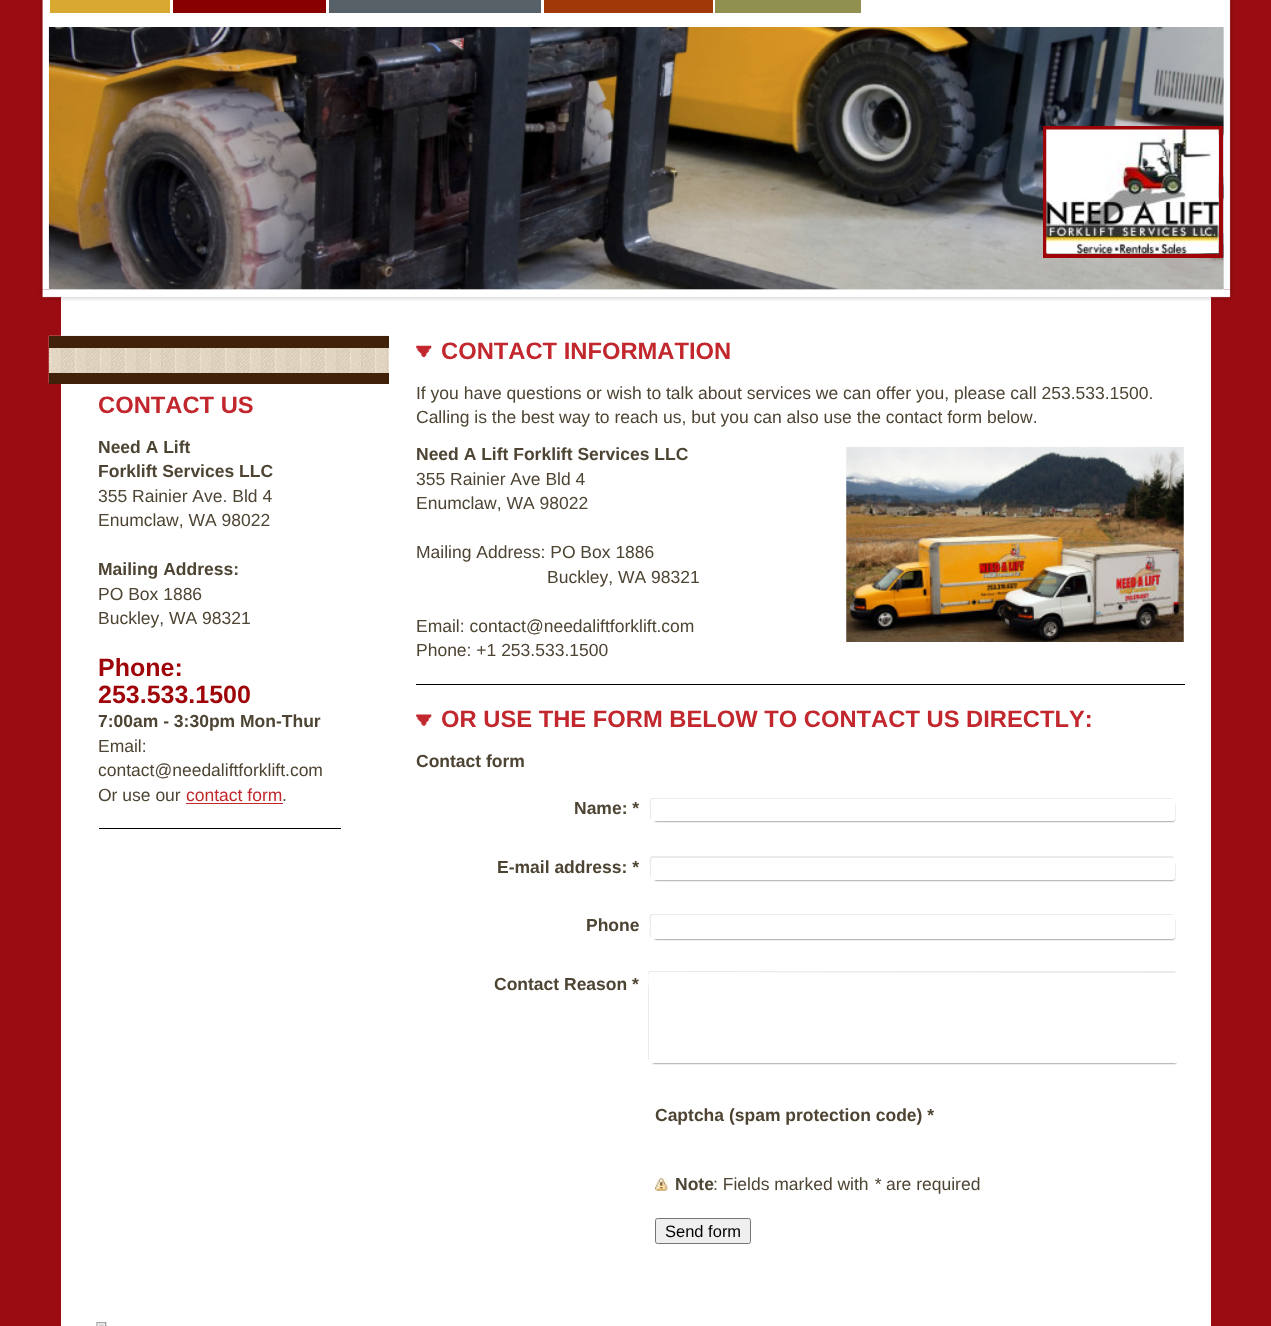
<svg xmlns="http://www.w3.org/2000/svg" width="1271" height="1326">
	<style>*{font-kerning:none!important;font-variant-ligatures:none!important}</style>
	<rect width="100%" height="100%" fill="#9A0C11" />
	<image x="39" y="0" width="1195" height="290" href="assets/img1.png" />
	<rect x="50" y="0" width="120" height="13" fill="#D8A830" />
	<rect x="173" y="0" width="153" height="13" fill="#880000" />
	<rect x="329" y="0" width="212" height="13" fill="#586068" />
	<rect x="544" y="0" width="169" height="13" fill="#A03808" />
	<rect x="715" y="0" width="146" height="13" fill="#909050" />
	<rect x="61" y="296" width="1150" height="1030" fill="#FFFFFF" />
	<image x="39" y="289" width="1195" height="12" href="assets/img4.png" />
	<rect x="49" y="28" width="1175" height="262" fill="#EEEEEE" />
	<image x="48" y="27" width="1176" height="263" href="assets/img2.png" />
	<rect x="1045" y="128" width="176" height="128" fill="none" stroke="#9F0408" stroke-width="4" />
	<image x="1046" y="129" width="173" height="125" href="assets/img3.png" />
	<image x="48" y="335" width="341" height="49" href="assets/img5.png" />
	<rect x="49" y="336" width="340" height="12" fill="#42210B" />
	<rect x="49" y="373" width="340" height="11" fill="#42210B" />
	<text x="98" y="413" font-family="Liberation Sans" font-size="23.75" font-weight="700" fill="#C1272D">CONTACT US</text>
	<g font-family="Liberation Sans" font-size="17.5" font-weight="700" fill="#4D4433">
		<text x="98" y="453">Need A Lift</text>
		<text x="98" y="477">Forklift Services LLC</text>
	</g>
	<g font-family="Liberation Sans" font-size="17.5" fill="#4D4433">
		<text x="98" y="502">355 Rainier Ave. Bld 4</text>
		<text x="98" y="526">Enumclaw, WA 98022</text>
	</g>
	<text x="98" y="575" font-family="Liberation Sans" font-size="17.5" font-weight="700" fill="#4D4433">Mailing Address:</text>
	<g font-family="Liberation Sans" font-size="17.5" fill="#4D4433">
		<text x="98" y="600">PO Box 1886</text>
		<text x="98" y="624">Buckley, WA 98321</text>
	</g>
	<g font-family="Liberation Sans" font-size="25" font-weight="700" fill="#9F0408">
		<text x="98" y="676">Phone:</text>
		<text x="98" y="703">253.533.1500</text>
	</g>
	<text x="98" y="727" font-family="Liberation Sans" font-size="17.5" font-weight="700" fill="#4D4433">7:00am - 3:30pm Mon-Thur</text>
	<g font-family="Liberation Sans" font-size="17.5" fill="#4D4433">
		<text x="98" y="752">Email:</text>
		<text x="98" y="776">contact@needaliftforklift.com</text>
		<text x="98" y="801">Or use our</text>
	</g>
	<text x="186" y="801" font-family="Liberation Sans" font-size="17.5" fill="#C1272D">contact form</text>
	<rect x="186" y="803" width="97" height="1" fill="#C1272D" />
	<text x="282" y="801" font-family="Liberation Sans" font-size="17.5" fill="#4D4433">.</text>
	<rect x="99" y="828" width="242" height="1" fill="#000000" />
	<image x="416" y="345" width="16" height="12" href="assets/img6.png" />
	<text x="441" y="359" font-family="Liberation Sans" font-size="23.75" font-weight="700" fill="#C1272D">CONTACT INFORMATION</text>
	<g font-family="Liberation Sans" font-size="17.5" fill="#4D4433">
		<text x="416" y="399">If you have questions or wish to talk about services we can offer you, please call 253.533.1500.</text>
		<text x="416" y="423">Calling is the best way to reach us, but you can also use the contact form below.</text>
	</g>
	<text x="416" y="460" font-family="Liberation Sans" font-size="17.5" font-weight="700" fill="#4D4433">Need A Lift Forklift Services LLC</text>
	<g font-family="Liberation Sans" font-size="17.5" fill="#4D4433">
		<text x="416" y="485">355 Rainier Ave Bld 4</text>
		<text x="416" y="509">Enumclaw, WA 98022</text>
		<text x="416" y="558">Mailing Address: PO Box 1886</text>
		<text x="547" y="583">Buckley, WA 98321</text>
		<text x="416" y="632">Email: contact@needaliftforklift.com</text>
		<text x="416" y="656">Phone: +1 253.533.1500</text>
	</g>
	<image x="846" y="447" width="338" height="195" href="assets/img7.png" />
	<rect x="416" y="684" width="769" height="1" fill="#000000" />
	<image x="416" y="714" width="16" height="12" href="assets/img8.png" />
	<text x="441" y="727" font-family="Liberation Sans" font-size="23.75" font-weight="700" fill="#C1272D">OR USE THE FORM BELOW TO CONTACT US DIRECTLY:</text>
	<text x="416" y="767" font-family="Liberation Sans" font-size="17.5" font-weight="700" fill="#4D4433">Contact form</text>
	<path d="M652 798C648 798 650 807 650 809C650 811 649 818 651 820V810C651 808 650 799 654 799H1173L1172 798Z" fill="#EBEBEB" />
	<rect x="655" y="804" width="519" height="17" fill="#000000" fill-opacity="0.8" filter="blur(1px)" />
	<rect x="651" y="799" width="524" height="22" rx="2.5" fill="#FFFFFF" />
	<text x="574" y="814" font-family="Liberation Sans" font-size="17.5" font-weight="700" fill="#4D4433">Name: *</text>
	<path d="M652 856C648 856 650 865 650 868C650 870 649 878 652 879L651 878V860C651 859 652 858 654 858H1172H1174C1174 857 1173 856 1172 856Z" fill="#EBEBEB" />
	<rect x="655" y="863" width="519" height="17" fill="#000000" fill-opacity="0.8" filter="blur(1px)" />
	<rect x="651" y="858" width="524" height="22" rx="2.5" fill="#FFFFFF" />
	<text x="497" y="873" font-family="Liberation Sans" font-size="17.5" font-weight="700" fill="#4D4433">E-mail address: *</text>
	<path d="M652 914C648 914 650 924 650 926C650 928 648 937 652 938C650 936 651 926 651 924C651 922 650 915 654 915H1174C1173 915 1172 914 1172 914Z" fill="#EBEBEB" />
	<rect x="655" y="920" width="519" height="19" fill="#000000" fill-opacity="0.8" filter="blur(1px)" />
	<rect x="651" y="915" width="524" height="24" rx="2.5" fill="#FFFFFF" />
	<text x="586" y="931" font-family="Liberation Sans" font-size="17.5" font-weight="700" fill="#4D4433">Phone</text>
	<path d="M650 971C649 971 648 972 648 974V1059L649 1060V989C649 984 646 973 651 972L1176 973C1176 972 1175 971 1174 971Z" fill="#EBEBEB" />
	<rect x="653" y="978" width="523" height="85" fill="#000000" fill-opacity="0.8" filter="blur(1px)" />
	<rect x="649" y="973" width="529" height="90" rx="2.5" fill="#FFFFFF" />
	<g font-family="Liberation Sans" font-size="17.5" font-weight="700" fill="#4D4433">
		<text x="494" y="990">Contact Reason *</text>
		<text x="655" y="1121">Captcha (spam protection code) *</text>
	</g>
	<image x="655" y="1178" width="13" height="13" href="assets/img9.png" />
	<text x="675" y="1190" font-family="Liberation Sans" font-size="17.5" font-weight="700" fill="#4D4433">Note</text>
	<text x="713" y="1190" font-family="Liberation Sans" font-size="17.5" fill="#4D4433">: Fields marked with</text>
	<text x="874" y="1190" font-family="Liberation Sans" font-size="17.5" font-style="italic" fill="#4D4433">*</text>
	<text x="886" y="1190" font-family="Liberation Sans" font-size="17.5" fill="#4D4433">are required</text>
	<rect x="655.5" y="1218.5" width="95" height="25" rx="2" fill="#EFEFEF" stroke="#767676" />
	<text x="665" y="1237" font-family="Liberation Sans" font-size="16.5" fill="#000000">Send form</text>
	<image x="96" y="1322" width="11" height="4" href="assets/img10.png" />
</svg>
